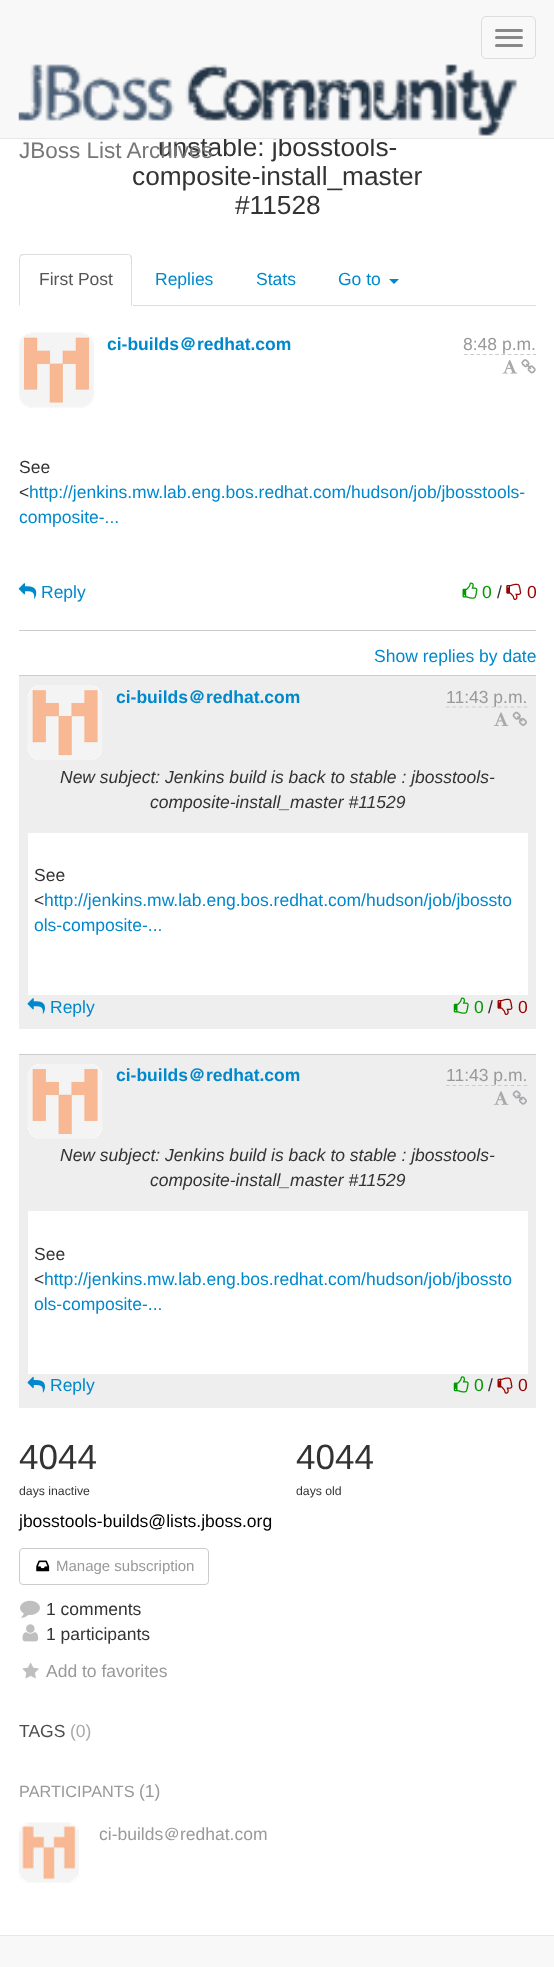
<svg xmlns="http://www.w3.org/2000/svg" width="554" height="1967">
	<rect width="100%" height="100%" fill="#FFFFFF" />
	<g font-family="Liberation Sans" font-size="26.25" fill="#333333">
		<text x="158" y="156">unstable: jbosstools-</text>
		<text x="132" y="185">composite-install_master</text>
		<text x="235" y="214">#11528</text>
	</g>
	<rect x="133" y="305" width="403" height="1" fill="#DDDDDD" />
	<path d="M24 254C22 254 21 254 20 255L21 256L24 255H129L130 256L131 255C130 255 129 254 128 254Z" fill="#DDDDDD" />
	<path d="M132 306V259C132 258 132 256 131 255L130 256L131 259V305Z" fill="#DDDDDD" />
	<path d="M20 255C20 256 19 258 19 259V306L20 305V259C20 258 20 257 21 256Z" fill="#DDDDDD" />
	<text x="39" y="285" font-family="Liberation Sans" font-size="17.5" fill="#555555">First Post</text>
	<g font-family="Liberation Sans" font-size="17.5" fill="#0088CC">
		<text x="155" y="285">Replies</text>
		<text x="256" y="285">Stats</text>
		<text x="338" y="285">Go to</text>
	</g>
	<path d="M389 279H399L394 284Z" fill="#0088CC" />
	<image x="19" y="332" width="75" height="76" href="assets/img1.png" />
	<text x="107" y="350" font-family="Liberation Sans" font-size="17.5" font-weight="700" fill="#0088CC">ci-builds</text>
	<text x="179" y="350" font-family="WenQuanYi Zen Hei" font-size="17.5" font-weight="700" fill="#0088CC">＠</text>
	<text x="197" y="350" font-family="Liberation Sans" font-size="17.5" font-weight="700" fill="#0088CC">redhat.com</text>
	<path d="M464 354.5H536" fill="none" stroke="#CCCCCC" stroke-width="1.2" stroke-dasharray="3.75 2.5" />
	<text x="463" y="350" font-family="Liberation Sans" font-size="17.5" fill="#999999">8:48 p.m.</text>
	<image x="502" y="360" width="16" height="14" href="assets/img2.png" />
	<image x="521" y="359" width="15" height="15" href="assets/img3.png" />
	<g font-family="Liberation Sans" font-size="17.5" fill="#333333">
		<text x="19" y="473">See</text>
		<text x="19" y="498">&lt;</text>
	</g>
	<g font-family="Liberation Sans" font-size="17.5" fill="#0088CC">
		<text x="29" y="498">http://jenkins.mw.lab.eng.bos.redhat.com/hudson/job/jbosstools-</text>
		<text x="19" y="523">composite-...</text>
	</g>
	<rect x="19" y="630" width="517" height="1" fill="#CCCCCC" />
	<image x="18" y="583" width="19" height="16" href="assets/img4.png" />
	<text x="41" y="598" font-family="Liberation Sans" font-size="17.5" fill="#0088CC">Reply</text>
	<image x="462" y="582" width="16" height="17" href="assets/img5.png" />
	<text x="482" y="598" font-family="Liberation Sans" font-size="17.5" fill="#009900">0</text>
	<text x="497" y="598" font-family="Liberation Sans" font-size="17.5" fill="#333333">/</text>
	<image x="506" y="583" width="16" height="17" href="assets/img6.png" />
	<text x="527" y="598" font-family="Liberation Sans" font-size="17.5" fill="#990000">0</text>
	<text x="374" y="662" font-family="Liberation Sans" font-size="17.5" fill="#0088CC">Show replies by date</text>
	<rect x="19" y="676" width="517" height="353" fill="#EEEEEE" />
	<rect x="19" y="675" width="517" height="1" fill="#CCCCCC" />
	<image x="27" y="685" width="76" height="75" href="assets/img7.png" />
	<text x="116" y="703" font-family="Liberation Sans" font-size="17.5" font-weight="700" fill="#0088CC">ci-builds</text>
	<text x="188" y="703" font-family="WenQuanYi Zen Hei" font-size="17.5" font-weight="700" fill="#0088CC">＠</text>
	<text x="206" y="703" font-family="Liberation Sans" font-size="17.5" font-weight="700" fill="#0088CC">redhat.com</text>
	<path d="M446 707H527.5" fill="none" stroke="#CCCCCC" stroke-width="1.2" stroke-dasharray="3.75 2.71" />
	<text x="446" y="703" font-family="Liberation Sans" font-size="17.5" fill="#999999">11:43 p.m.</text>
	<image x="493" y="712" width="16" height="15" href="assets/img8.png" />
	<image x="512" y="711" width="15" height="15" href="assets/img9.png" />
	<g font-family="Liberation Sans" font-size="17.5" font-style="italic" fill="#333333">
		<text x="60" y="783">New subject: Jenkins build is back to stable : jbosstools-</text>
		<text x="150" y="808">composite-install_master #11529</text>
	</g>
	<rect x="28" y="833" width="500" height="162" fill="#FFFFFF" />
	<g font-family="Liberation Sans" font-size="17.5" fill="#333333">
		<text x="34" y="881">See</text>
		<text x="34" y="906">&lt;</text>
	</g>
	<g font-family="Liberation Sans" font-size="17.5" fill="#0088CC">
		<text x="44" y="906">http://jenkins.mw.lab.eng.bos.redhat.com/hudson/job/jbossto</text>
		<text x="34" y="931">ols-composite-...</text>
	</g>
	<image x="27" y="998" width="18" height="16" href="assets/img10.png" />
	<text x="50" y="1013" font-family="Liberation Sans" font-size="17.5" fill="#0088CC">Reply</text>
	<image x="453" y="997" width="16" height="17" href="assets/img11.png" />
	<text x="474" y="1013" font-family="Liberation Sans" font-size="17.5" fill="#009900">0</text>
	<text x="488" y="1013" font-family="Liberation Sans" font-size="17.5" fill="#333333">/</text>
	<image x="497" y="998" width="16" height="17" href="assets/img12.png" />
	<text x="518" y="1013" font-family="Liberation Sans" font-size="17.5" fill="#990000">0</text>
	<rect x="19" y="1055" width="517" height="353" fill="#EEEEEE" />
	<rect x="19" y="1054" width="517" height="1" fill="#CCCCCC" />
	<image x="27" y="1064" width="76" height="75" href="assets/img13.png" />
	<text x="116" y="1081" font-family="Liberation Sans" font-size="17.5" font-weight="700" fill="#0088CC">ci-builds</text>
	<text x="188" y="1081" font-family="WenQuanYi Zen Hei" font-size="17.5" font-weight="700" fill="#0088CC">＠</text>
	<text x="206" y="1081" font-family="Liberation Sans" font-size="17.5" font-weight="700" fill="#0088CC">redhat.com</text>
	<path d="M446 1085.5H527.5" fill="none" stroke="#CCCCCC" stroke-width="1.2" stroke-dasharray="3.75 2.71" />
	<text x="446" y="1081" font-family="Liberation Sans" font-size="17.5" fill="#999999">11:43 p.m.</text>
	<image x="493" y="1091" width="16" height="14" href="assets/img14.png" />
	<image x="512" y="1090" width="15" height="15" href="assets/img15.png" />
	<g font-family="Liberation Sans" font-size="17.5" font-style="italic" fill="#333333">
		<text x="60" y="1161">New subject: Jenkins build is back to stable : jbosstools-</text>
		<text x="150" y="1186">composite-install_master #11529</text>
	</g>
	<rect x="28" y="1211" width="500" height="163" fill="#FFFFFF" />
	<g font-family="Liberation Sans" font-size="17.5" fill="#333333">
		<text x="34" y="1260">See</text>
		<text x="34" y="1285">&lt;</text>
	</g>
	<g font-family="Liberation Sans" font-size="17.5" fill="#0088CC">
		<text x="44" y="1285">http://jenkins.mw.lab.eng.bos.redhat.com/hudson/job/jbossto</text>
		<text x="34" y="1310">ols-composite-...</text>
	</g>
	<image x="27" y="1376" width="18" height="17" href="assets/img16.png" />
	<text x="50" y="1391" font-family="Liberation Sans" font-size="17.5" fill="#0088CC">Reply</text>
	<image x="453" y="1376" width="16" height="17" href="assets/img17.png" />
	<text x="474" y="1391" font-family="Liberation Sans" font-size="17.5" fill="#009900">0</text>
	<text x="488" y="1391" font-family="Liberation Sans" font-size="17.5" fill="#333333">/</text>
	<image x="497" y="1377" width="16" height="17" href="assets/img18.png" />
	<text x="518" y="1391" font-family="Liberation Sans" font-size="17.5" fill="#990000">0</text>
	<text x="19" y="1469" font-family="Liberation Sans" font-size="35" fill="#333333">4044</text>
	<text x="19" y="1495" font-family="Liberation Sans" font-size="12.25" fill="#333333">days inactive</text>
	<text x="296" y="1469" font-family="Liberation Sans" font-size="35" fill="#333333">4044</text>
	<text x="296" y="1495" font-family="Liberation Sans" font-size="12.25" fill="#333333">days old</text>
	<text x="19" y="1527" font-family="Liberation Sans" font-size="17.5" fill="#000000">jbosstools-builds@lists.jboss.org</text>
	<rect x="19.5" y="1548.5" width="189" height="36" rx="3.5" fill="none" stroke="#CCCCCC" />
	<image x="36" y="1560" width="14" height="12" href="assets/img19.png" />
	<text x="56" y="1571" font-family="Liberation Sans" font-size="15" fill="#999999">Manage subscription</text>
	<image x="20" y="1600" width="20" height="18" href="assets/img20.png" />
	<text x="46" y="1615" font-family="Liberation Sans" font-size="17.5" fill="#333333">1 comments</text>
	<image x="22" y="1624" width="17" height="18" href="assets/img21.png" />
	<text x="46" y="1640" font-family="Liberation Sans" font-size="17.5" fill="#333333">1 participants</text>
	<image x="22" y="1662" width="17" height="17" href="assets/img22.png" />
	<text x="46" y="1677" font-family="Liberation Sans" font-size="17.5" fill="#999999">Add to favorites</text>
	<text x="19" y="1737" font-family="Liberation Sans" font-size="17.5" fill="#4D4D4D">TAGS</text>
	<text x="70" y="1737" font-family="Liberation Sans" font-size="17.5" fill="#A7A9AC">(0)</text>
	<text x="19" y="1797" font-family="Liberation Sans" font-size="16.25" fill="#999999">PARTICIPANTS</text>
	<text x="139" y="1797" font-family="Liberation Sans" font-size="17.5" fill="#999999">(1)</text>
	<image x="19" y="1822" width="60" height="61" href="assets/img23.png" />
	<text x="99" y="1840" font-family="Liberation Sans" font-size="17.5" fill="#999999">ci-builds</text>
	<text x="163" y="1840" font-family="WenQuanYi Zen Hei" font-size="17.5" font-weight="500" fill="#999999">＠</text>
	<text x="180" y="1840" font-family="Liberation Sans" font-size="17.5" fill="#999999">redhat.com</text>
	<rect x="0" y="0" width="554" height="138" fill="#F8F8F8" />
	<rect x="0" y="138" width="554" height="1" fill="#E7E7E7" />
	<rect x="481.5" y="16.5" width="54" height="42" rx="4.5" fill="none" stroke="#DDDDDD" />
	<rect x="495" y="29" width="28" height="3" rx="1.5" fill="#888888" />
	<rect x="495" y="36" width="28" height="3" rx="1.5" fill="#888888" />
	<rect x="495" y="44" width="28" height="3" rx="1.5" fill="#888888" />
	<image x="18" y="64" width="500" height="72" href="assets/img24.png" />
	<text x="19" y="158" font-family="Liberation Sans" font-size="22.5" fill="#777777">JBoss List Archives</text>
	<rect x="0" y="1936" width="554" height="31" fill="#F8F8F8" />
	<rect x="0" y="1935" width="554" height="1" fill="#E7E7E7" />
</svg>
